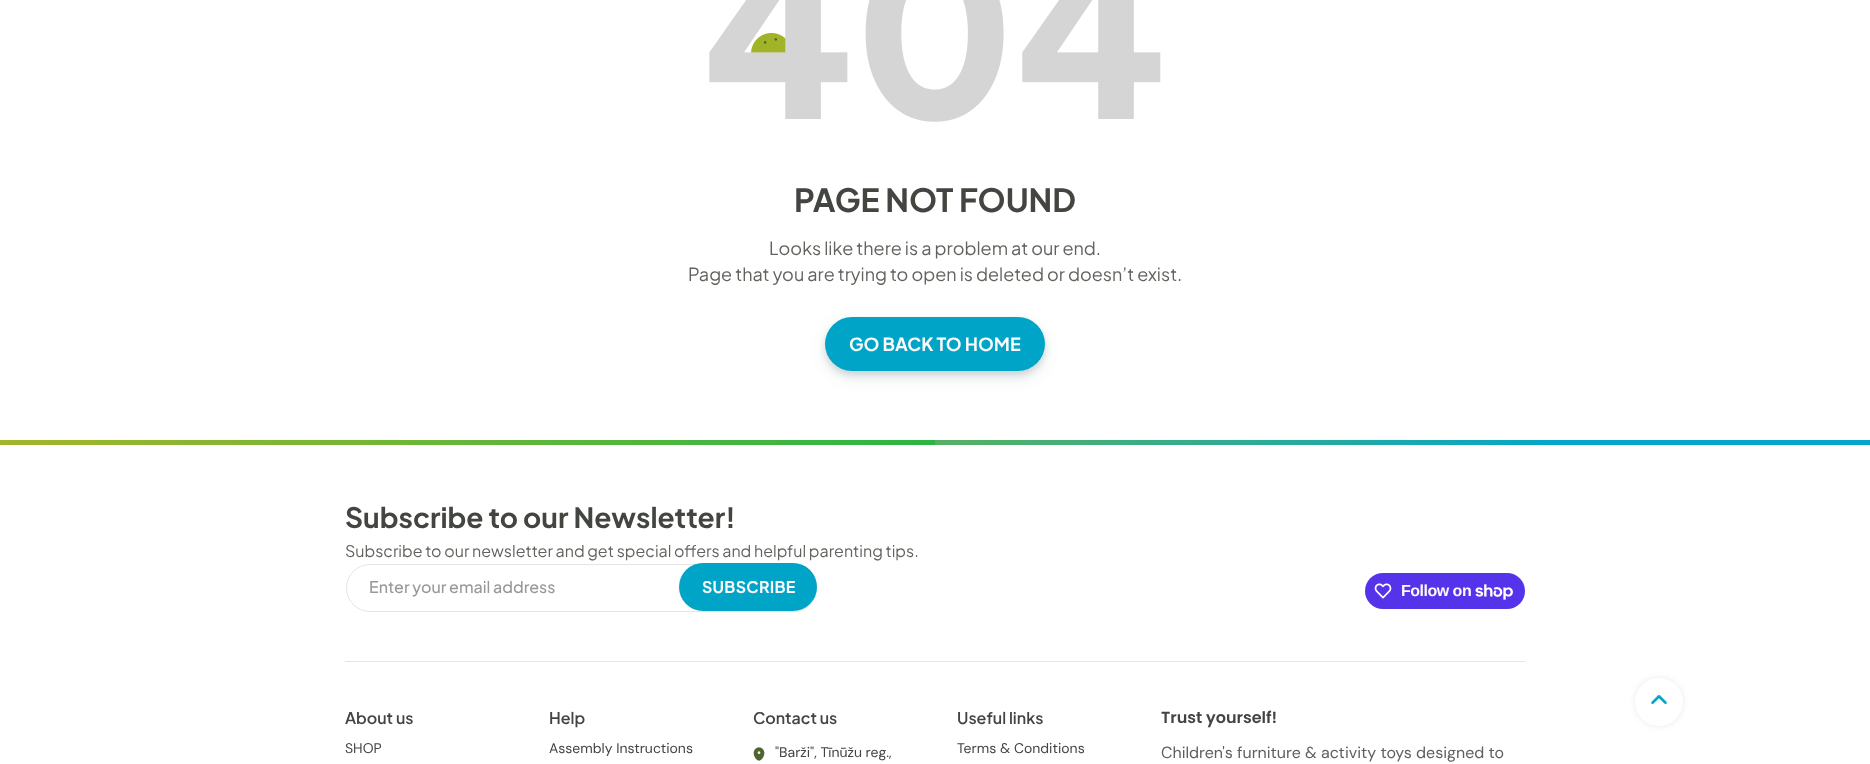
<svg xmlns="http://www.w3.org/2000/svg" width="1870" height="764">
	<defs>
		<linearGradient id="g1" gradientUnits="userSpaceOnUse" x1="0" y1="445" x2="935" y2="445"><stop offset="0" stop-color="#A3B52B" /><stop offset="1" stop-color="#2BB545" /></linearGradient>
		<linearGradient id="g2" gradientUnits="userSpaceOnUse" x1="1555" y1="445" x2="954" y2="445"><stop offset="0" stop-color="#05A6C8" /><stop offset="1" stop-color="#54B064" /></linearGradient>
	</defs>
	<rect width="100%" height="100%" fill="#FFFFFF" />
	<image x="709" y="0" width="452" height="122" href="assets/img1.png" />
	<text x="794" y="212" font-family="Plus Jakarta Sans" font-size="32" font-weight="700" fill="#434540">PAGE NOT FOUND</text>
	<g font-family="Plus Jakarta Sans" font-size="18" fill="#61645E">
		<text x="769" y="255">Looks like there is a problem at our end.</text>
		<text x="688" y="281">Page that you are trying to open is deleted or doesn’t exist.</text>
	</g>
	<rect x="825" y="323" width="220" height="54" rx="27" fill="#04303A" fill-opacity="0.1" filter="blur(8px)" />
	<rect x="825" y="321" width="220" height="54" rx="27" fill="#02232A" fill-opacity="0.12" filter="blur(3px)" />
	<rect x="825" y="317" width="220" height="54" rx="27" fill="#00A4C7" />
	<text x="849" y="351" font-family="Plus Jakarta Sans" font-size="18" font-weight="700" fill="#FAFAFA">GO BACK TO HOME</text>
	<rect x="0" y="440" width="935" height="5" fill="url(#g1)" />
	<rect x="935" y="440" width="935" height="5" fill="url(#g2)" />
	<text x="345" y="528" font-family="Plus Jakarta Sans" font-size="28" font-weight="700" fill="#434540">Subscribe to our Newsletter!</text>
	<text x="345" y="557" font-family="Plus Jakarta Sans" font-size="16" fill="#61645E">Subscribe to our newsletter and get special offers and helpful parenting tips.</text>
	<rect x="346.5" y="564.5" width="470" height="47" rx="23.5" fill="none" stroke="#E5E5E5" />
	<text x="369" y="593" font-family="Plus Jakarta Sans" font-size="16" font-weight="500" fill="#989898">Enter your email address</text>
	<rect x="679" y="563" width="138" height="48" rx="24" fill="#00A4C7" />
	<text x="702" y="593" font-family="Plus Jakarta Sans" font-size="16" font-weight="700" letter-spacing="0.25" fill="#FAFAFA">SUBSCRIBE</text>
	<rect x="1365" y="573" width="160" height="36" rx="18" fill="#5433EB" />
	<image x="1374" y="583" width="18" height="16" href="assets/img2.png" />
	<text x="1401" y="596" font-family="Liberation Sans" font-size="16" font-weight="700" letter-spacing="-0.5" fill="#FAFAFA">Follow on</text>
	<image x="1475" y="584" width="38" height="16" href="assets/img3.png" />
	<rect x="345" y="661" width="1180" height="1" fill="#E5E5E5" />
	<text x="345" y="724" font-family="Plus Jakarta Sans" font-size="16" font-weight="600" fill="#434540">About us</text>
	<text x="345" y="753" font-family="DM Sans" font-size="14" fill="#434540">SHOP</text>
	<text x="549" y="724" font-family="Plus Jakarta Sans" font-size="16" font-weight="600" fill="#434540">Help</text>
	<text x="549" y="753" font-family="DM Sans" font-size="14" fill="#434540">Assembly Instructions</text>
	<text x="753" y="724" font-family="Plus Jakarta Sans" font-size="16" font-weight="600" fill="#434540">Contact us</text>
	<image x="753" y="747" width="12" height="14" href="assets/img4.png" />
	<text x="775" y="757" font-family="DM Sans" font-size="14" fill="#434540">"Barži", Tīnūžu reg.,</text>
	<text x="957" y="724" font-family="Plus Jakarta Sans" font-size="16" font-weight="600" fill="#434540">Useful links</text>
	<text x="957" y="753" font-family="DM Sans" font-size="14" fill="#434540">Terms &amp; Conditions</text>
	<text x="1161" y="723" font-family="Poppins" font-size="16" font-weight="600" fill="#434540">Trust yourself!</text>
	<text x="1161" y="758" font-family="DM Sans" font-size="16" fill="#5E5E5E">Children's furniture &amp; activity toys designed to</text>
	<rect x="1635" y="678" width="48" height="48" rx="24" fill="#ADADAD" fill-opacity="0.25" filter="blur(3px)" />
	<circle cx="1659" cy="702" r="24" fill="#FFFFFF" />
	<image x="1651" y="695" width="16" height="9" href="assets/img5.png" />
</svg>
